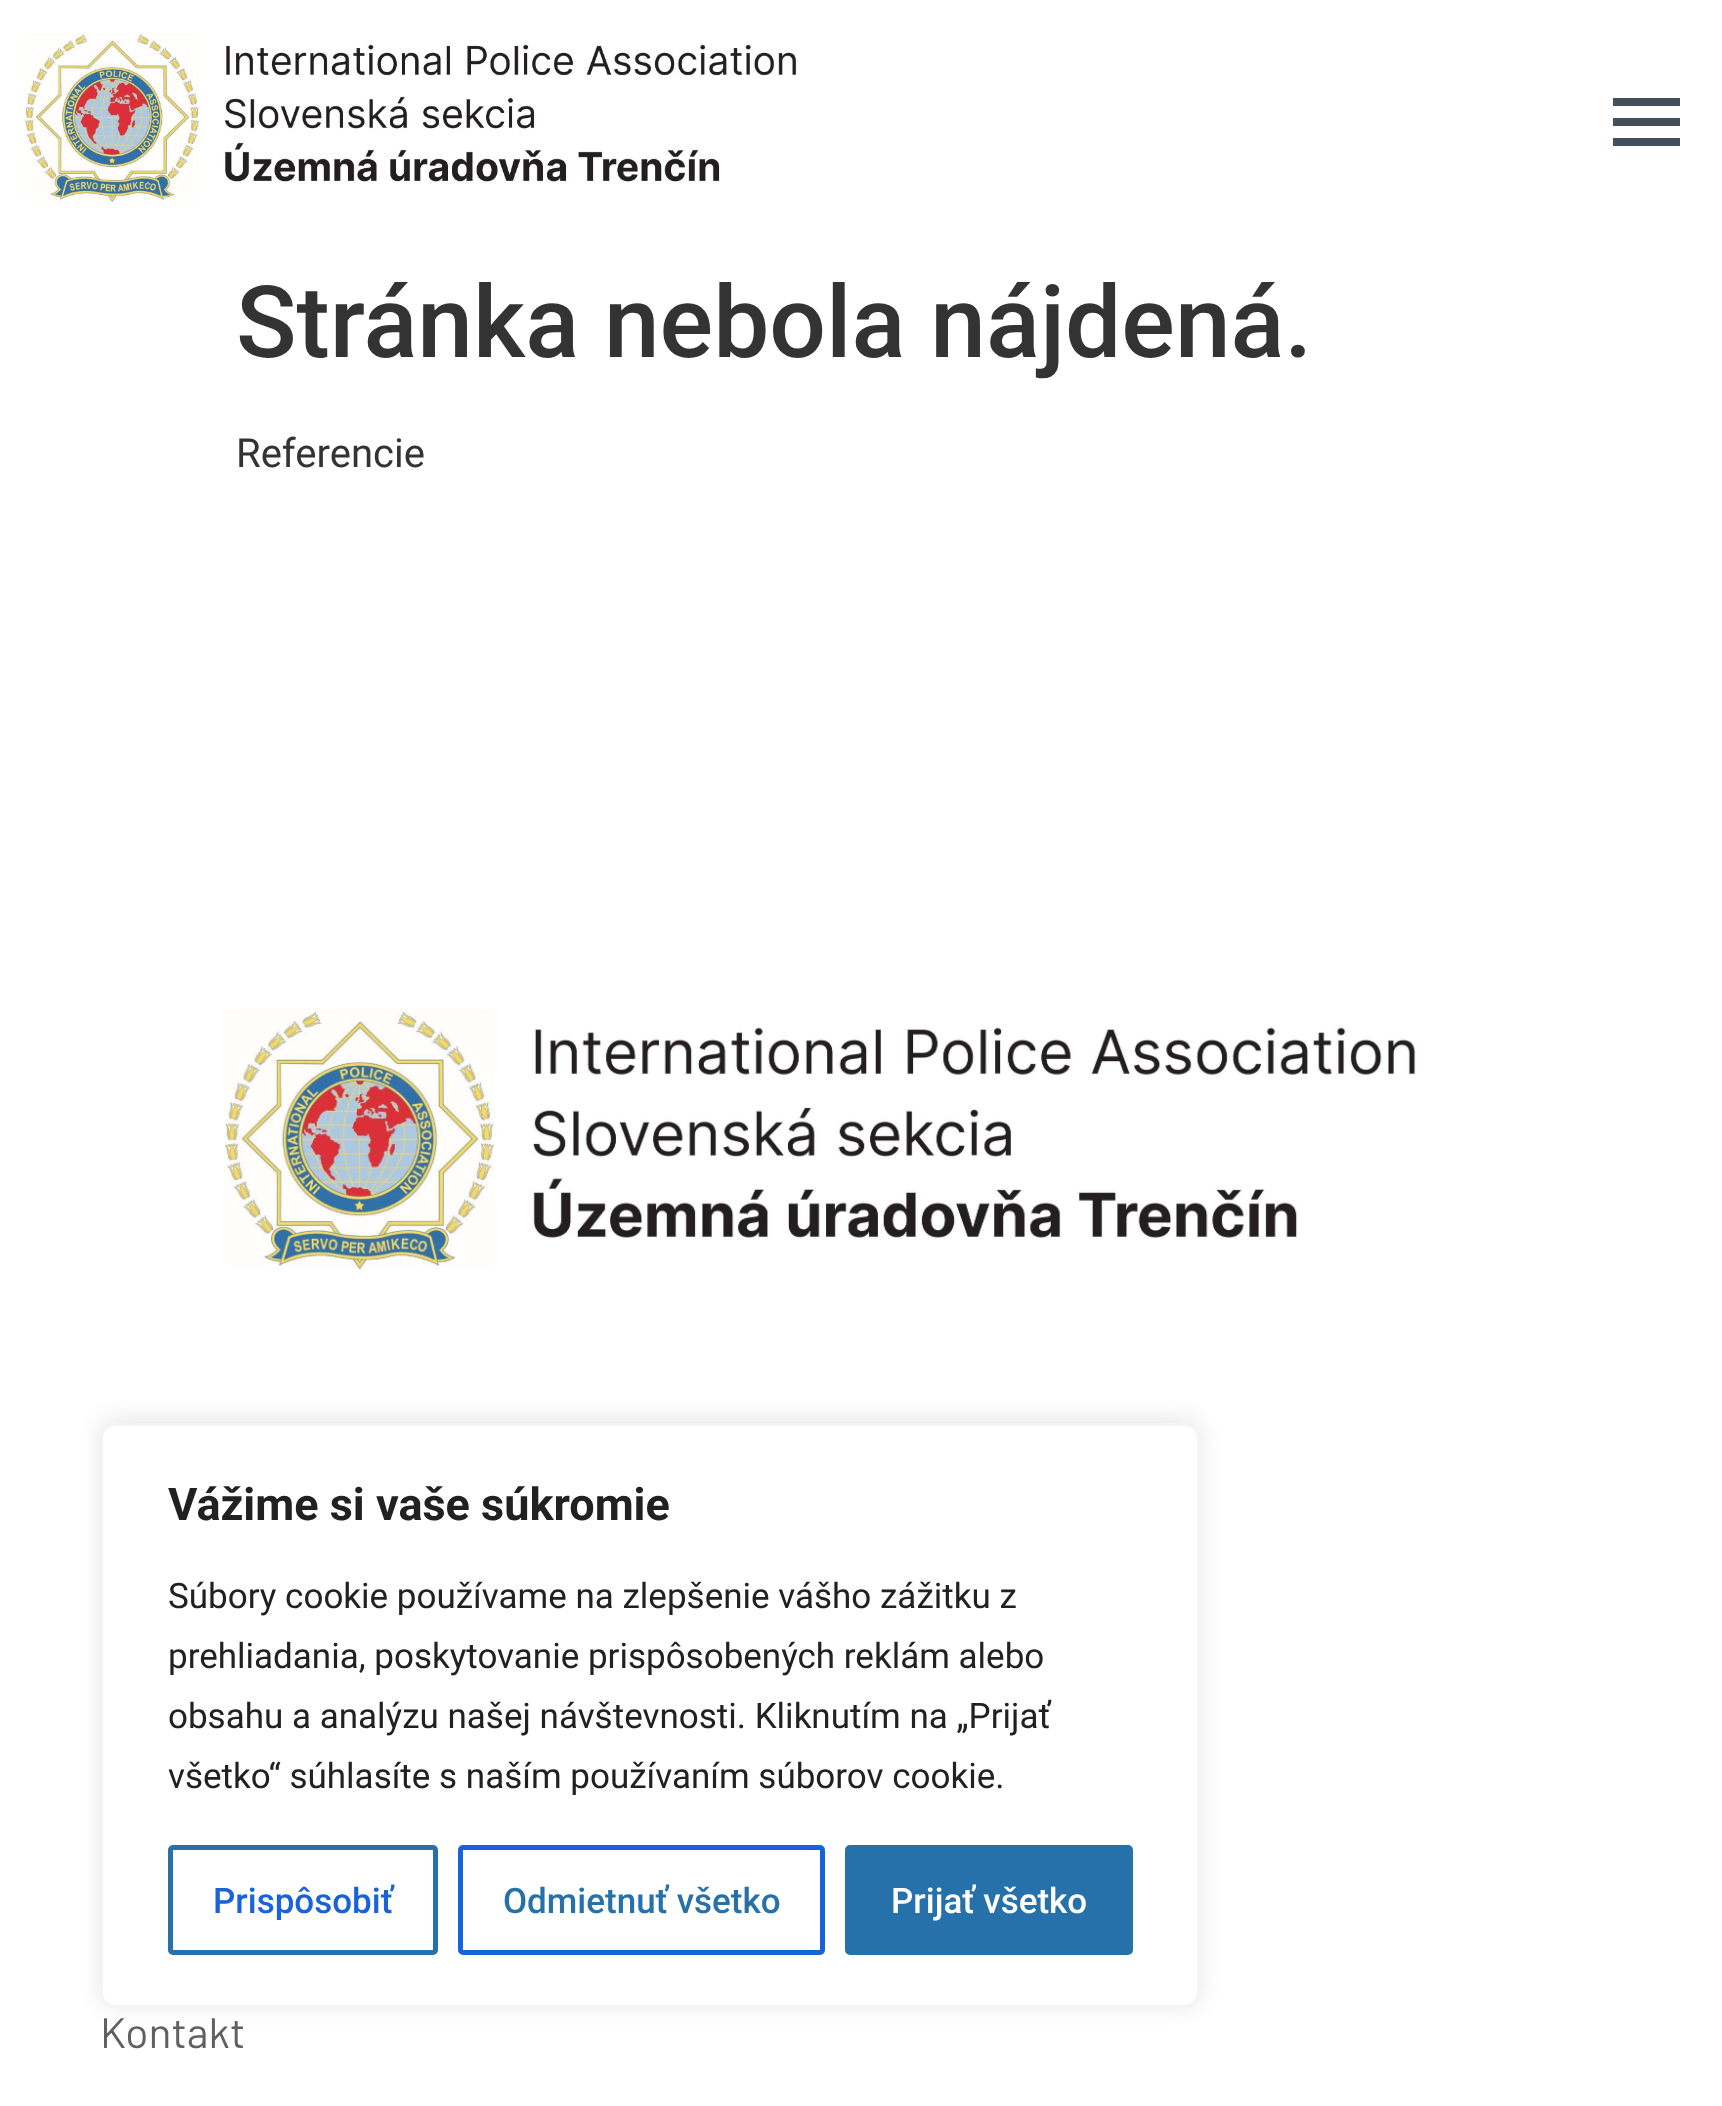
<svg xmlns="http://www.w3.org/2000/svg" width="1722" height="2106">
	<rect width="100%" height="100%" fill="#FFFFFF" />
	<image x="25" y="33" width="772" height="170" href="assets/img1.png" />
	<rect x="1613" y="98" width="67" height="8" fill="#43505C" />
	<rect x="1613" y="118" width="67" height="8" fill="#43505C" />
	<rect x="1613" y="138" width="67" height="8" fill="#43505C" />
	<text x="236" y="357" font-family="Roboto" font-size="100" font-weight="500" fill="#333333">Stránka nebola nájdená.</text>
	<text x="236" y="467" font-family="Roboto" font-size="40" fill="#333333">Referencie</text>
	<rect x="100" y="1420" width="1100" height="585" rx="15" fill="#ACABAB" fill-opacity="0.3" filter="blur(12.5px)" />
	<rect x="101.5" y="1424.5" width="1097" height="582" rx="13.5" fill="#FFFFFF" stroke="#F4F4F4" stroke-width="3" />
	<text x="168" y="1520" font-family="Roboto" font-size="45" font-weight="700" fill="#212121">Vážime si vaše súkromie</text>
	<g font-family="Roboto" font-size="35" fill="#212121">
		<text x="168" y="1608">Súbory cookie používame na zlepšenie vášho zážitku z</text>
		<text x="168" y="1668">prehliadania, poskytovanie prispôsobených reklám alebo</text>
		<text x="168" y="1728">obsahu a analýzu našej návštevnosti. Kliknutím na „Prijať</text>
		<text x="168" y="1788">všetko“ súhlasíte s naším používaním súborov cookie.</text>
	</g>
	<rect x="170.5" y="1847.5" width="265" height="105" rx="2.5" fill="none" stroke="#2771AB" stroke-width="5" />
	<text x="213" y="1913" font-family="Roboto" font-size="35" font-weight="500" fill="#1863DC">Prispôsobiť</text>
	<rect x="460.5" y="1847.5" width="362" height="105" rx="2.5" fill="none" stroke="#1863DC" stroke-width="5" />
	<text x="503" y="1913" font-family="Roboto" font-size="35" font-weight="500" fill="#2771AB">Odmietnuť všetko</text>
	<rect x="847.5" y="1847.5" width="283" height="105" rx="2.5" fill="#2771AB" stroke="#2771AB" stroke-width="5" />
	<text x="891" y="1913" font-family="Roboto" font-size="35" font-weight="500" fill="#FFFFFF">Prijať všetko</text>
	<image x="225" y="1009" width="1191" height="261" href="assets/img2.png" />
	<text x="100" y="2048" font-family="Barlow" font-size="42.5" fill="#606060">Kontakt</text>
</svg>
